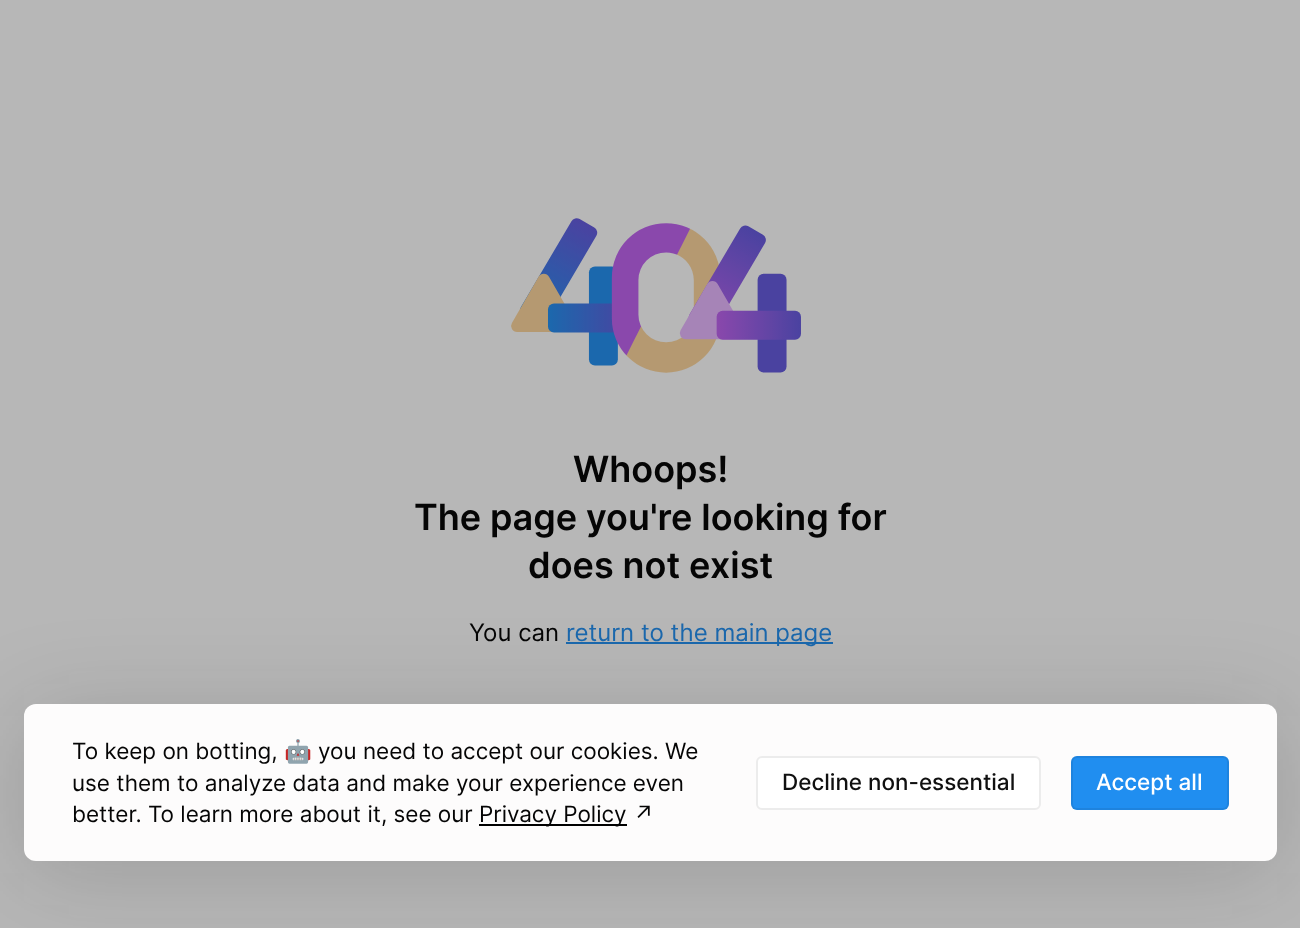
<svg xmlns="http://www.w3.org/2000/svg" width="1300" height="928">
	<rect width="100%" height="100%" fill="#B7B7B7" />
	<image x="511" y="218" width="290" height="155" href="assets/img1.png" />
	<g font-family="Inter" font-size="36" font-weight="600" fill="#050505">
		<text x="573" y="482">Whoops!</text>
		<text x="414" y="530">The page you're looking for</text>
		<text x="528" y="578">does not exist</text>
	</g>
	<text x="469" y="641" font-family="Inter" font-size="24" fill="#050505">You can</text>
	<rect x="566" y="642" width="267" height="2" fill="#1B68AD" />
	<text x="566" y="641" font-family="Inter" font-size="24" fill="#1B68AD">return to the main page</text>
	<rect x="24" y="716" width="1253" height="157" rx="12" fill="#141414" fill-opacity="0.16" filter="blur(48px)" />
	<rect x="24" y="704" width="1253" height="157" rx="12" fill="#FDFCFC" />
	<text x="72" y="759" font-family="Inter" font-size="22.5" fill="#050505">To keep on botting,</text>
	<text x="284" y="759" font-family="Noto Color Emoji" font-size="22.5" fill="#050505">🤖</text>
	<g font-family="Inter" font-size="22.5" fill="#050505">
		<text x="318" y="759">you need to accept our cookies. We</text>
		<text x="72" y="791">use them to analyze data and make your experience even</text>
		<text x="72" y="822">better. To learn more about it, see our</text>
	</g>
	<rect x="479" y="824" width="148" height="2" fill="#000000" />
	<text x="479" y="822" font-family="Inter" font-size="22.5" fill="#050505">Privacy Policy ↗︎</text>
	<rect x="757" y="757" width="283" height="52" rx="5" fill="#FFFFFF" stroke="#ECECEC" stroke-width="2" />
	<text x="782" y="790" font-family="Inter" font-size="22.5" font-weight="500" fill="#101010">Decline non-essential</text>
	<rect x="1071" y="756" width="158" height="54" rx="6" fill="#208EF0" />
	<rect x="1072" y="757" width="156" height="52" rx="5" fill="none" stroke="#101010" stroke-opacity="0.08" stroke-width="2" />
	<text x="1096" y="790" font-family="Inter" font-size="22.5" font-weight="500" fill="#FFFFFF">Accept all</text>
</svg>
